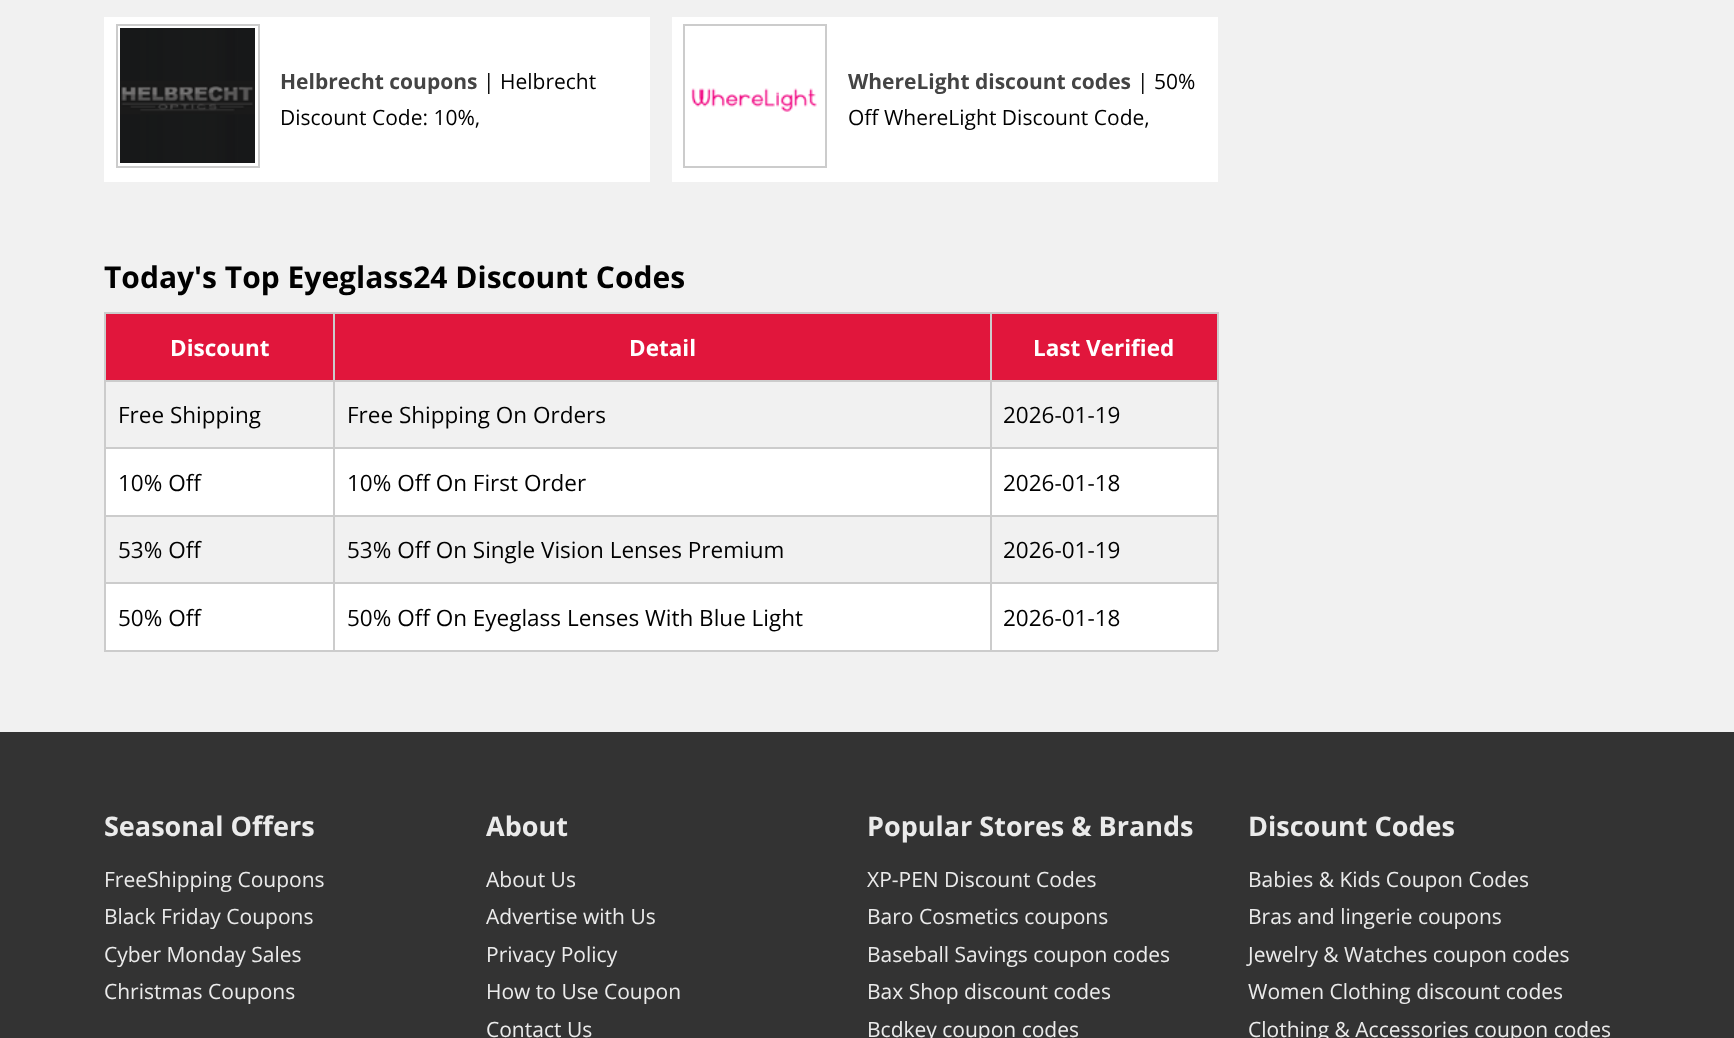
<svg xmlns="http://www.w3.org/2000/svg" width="1734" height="1038">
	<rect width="100%" height="100%" fill="#F1F1F1" />
	<rect x="104" y="17" width="546" height="165" fill="#FFFFFF" />
	<rect x="117" y="25" width="142" height="142" fill="none" stroke="#CCCCCC" stroke-width="2" />
	<image x="120" y="28" width="135" height="135" href="assets/img1.png" />
	<text x="280" y="89" font-family="Open Sans" font-size="21" font-weight="700" fill="#444444">Helbrecht coupons</text>
	<g font-family="Open Sans" font-size="21" fill="#000000">
		<text x="483" y="89">| Helbrecht</text>
		<text x="280" y="125">Discount Code: 10%,</text>
	</g>
	<rect x="672" y="17" width="546" height="165" fill="#FFFFFF" />
	<rect x="684" y="25" width="142" height="142" fill="none" stroke="#CCCCCC" stroke-width="2" />
	<image x="691" y="88" width="126" height="24" href="assets/img2.png" />
	<text x="848" y="89" font-family="Open Sans" font-size="21" font-weight="700" fill="#444444">WhereLight discount codes</text>
	<g font-family="Open Sans" font-size="21" fill="#000000">
		<text x="1137" y="89">| 50%</text>
		<text x="848" y="125">Off WhereLight Discount Code,</text>
	</g>
	<text x="104" y="288" font-family="Open Sans" font-size="30" font-weight="700" fill="#000000">Today's Top Eyeglass24 Discount Codes</text>
	<rect x="106" y="314" width="227" height="66" fill="#E1163C" />
	<rect x="990" y="312" width="228" height="2" fill="#CCCCCC" />
	<rect x="990" y="380" width="228" height="2" fill="#CCCCCC" />
	<rect x="990" y="447" width="228" height="2" fill="#CCCCCC" />
	<rect x="106" y="449" width="1111" height="66" fill="#FFFFFF" />
	<rect x="990" y="515" width="228" height="2" fill="#CCCCCC" />
	<rect x="990" y="582" width="228" height="2" fill="#CCCCCC" />
	<rect x="106" y="584" width="1111" height="66" fill="#FFFFFF" />
	<rect x="1217" y="582" width="2" height="69" fill="#CCCCCC" />
	<rect x="990" y="650" width="228" height="2" fill="#CCCCCC" />
	<rect x="990" y="582" width="2" height="69" fill="#CCCCCC" />
	<rect x="333" y="582" width="659" height="2" fill="#CCCCCC" />
	<rect x="990" y="515" width="2" height="69" fill="#CCCCCC" />
	<rect x="333" y="515" width="659" height="2" fill="#CCCCCC" />
	<rect x="990" y="447" width="2" height="69" fill="#CCCCCC" />
	<rect x="333" y="447" width="659" height="2" fill="#CCCCCC" />
	<rect x="990" y="380" width="2" height="69" fill="#CCCCCC" />
	<rect x="333" y="380" width="659" height="2" fill="#CCCCCC" />
	<rect x="990" y="312" width="2" height="69" fill="#CCCCCC" />
	<rect x="333" y="312" width="659" height="2" fill="#CCCCCC" />
	<rect x="333" y="650" width="659" height="2" fill="#CCCCCC" />
	<rect x="333" y="582" width="2" height="69" fill="#CCCCCC" />
	<rect x="104" y="582" width="231" height="2" fill="#CCCCCC" />
	<rect x="333" y="515" width="2" height="69" fill="#CCCCCC" />
	<rect x="104" y="515" width="231" height="2" fill="#CCCCCC" />
	<rect x="333" y="447" width="2" height="69" fill="#CCCCCC" />
	<rect x="104" y="447" width="231" height="2" fill="#CCCCCC" />
	<rect x="333" y="380" width="2" height="69" fill="#CCCCCC" />
	<rect x="104" y="380" width="231" height="2" fill="#CCCCCC" />
	<rect x="333" y="312" width="2" height="69" fill="#CCCCCC" />
	<rect x="104" y="312" width="231" height="2" fill="#CCCCCC" />
	<rect x="104" y="650" width="231" height="2" fill="#CCCCCC" />
	<rect x="104" y="582" width="2" height="69" fill="#CCCCCC" />
	<rect x="104" y="515" width="2" height="69" fill="#CCCCCC" />
	<rect x="104" y="447" width="2" height="69" fill="#CCCCCC" />
	<rect x="104" y="380" width="2" height="69" fill="#CCCCCC" />
	<rect x="104" y="312" width="2" height="69" fill="#CCCCCC" />
	<text x="170" y="356" font-family="Open Sans" font-size="22.5" font-weight="700" fill="#FFFFFF">Discount</text>
	<rect x="335" y="314" width="655" height="66" fill="#E1163C" />
	<text x="629" y="356" font-family="Open Sans" font-size="22.5" font-weight="700" fill="#FFFFFF">Detail</text>
	<rect x="992" y="314" width="225" height="66" fill="#E1163C" />
	<rect x="1217" y="515" width="2" height="69" fill="#CCCCCC" />
	<rect x="1217" y="447" width="2" height="69" fill="#CCCCCC" />
	<rect x="1217" y="380" width="2" height="69" fill="#CCCCCC" />
	<rect x="1217" y="312" width="2" height="69" fill="#CCCCCC" />
	<text x="1033" y="356" font-family="Open Sans" font-size="22.5" font-weight="700" fill="#FFFFFF">Last Verified</text>
	<g font-family="Open Sans" font-size="22.5" fill="#000000">
		<text x="118" y="423">Free Shipping</text>
		<text x="347" y="423">Free Shipping On Orders</text>
		<text x="1003" y="423">2026-01-19</text>
		<text x="118" y="491">10% Off</text>
		<text x="347" y="491">10% Off On First Order</text>
		<text x="1003" y="491">2026-01-18</text>
		<text x="118" y="558">53% Off</text>
		<text x="347" y="558">53% Off On Single Vision Lenses Premium</text>
		<text x="1003" y="558">2026-01-19</text>
		<text x="118" y="626">50% Off</text>
		<text x="347" y="626">50% Off On Eyeglass Lenses With Blue Light</text>
		<text x="1003" y="626">2026-01-18</text>
	</g>
	<rect x="0" y="732" width="1734" height="306" fill="#333333" />
	<text x="104" y="836" font-family="Open Sans" font-size="27" font-weight="700" fill="#EBEBEB">Seasonal Offers</text>
	<g font-family="Open Sans" font-size="21" fill="#EBEBEB">
		<text x="104" y="887">FreeShipping Coupons</text>
		<text x="104" y="924">Black Friday Coupons</text>
		<text x="104" y="962">Cyber Monday Sales</text>
		<text x="104" y="999">Christmas Coupons</text>
	</g>
	<text x="486" y="836" font-family="Open Sans" font-size="27" font-weight="700" fill="#EBEBEB">About</text>
	<g font-family="Open Sans" font-size="21" fill="#EBEBEB">
		<text x="486" y="887">About Us</text>
		<text x="486" y="924">Advertise with Us</text>
		<text x="486" y="962">Privacy Policy</text>
		<text x="486" y="999">How to Use Coupon</text>
		<text x="486" y="1037">Contact Us</text>
	</g>
	<text x="867" y="836" font-family="Open Sans" font-size="27" font-weight="700" fill="#EBEBEB">Popular Stores &amp; Brands</text>
	<g font-family="Open Sans" font-size="21" fill="#EBEBEB">
		<text x="867" y="887">XP-PEN Discount Codes</text>
		<text x="867" y="924">Baro Cosmetics coupons</text>
		<text x="867" y="962">Baseball Savings coupon codes</text>
		<text x="867" y="999">Bax Shop discount codes</text>
		<text x="867" y="1037">Bcdkey coupon codes</text>
	</g>
	<text x="1248" y="836" font-family="Open Sans" font-size="27" font-weight="700" fill="#EBEBEB">Discount Codes</text>
	<g font-family="Open Sans" font-size="21" fill="#EBEBEB">
		<text x="1248" y="887">Babies &amp; Kids Coupon Codes</text>
		<text x="1248" y="924">Bras and lingerie coupons</text>
		<text x="1248" y="962">Jewelry &amp; Watches coupon codes</text>
		<text x="1248" y="999">Women Clothing discount codes</text>
		<text x="1248" y="1037">Clothing &amp; Accessories coupon codes</text>
	</g>
</svg>
